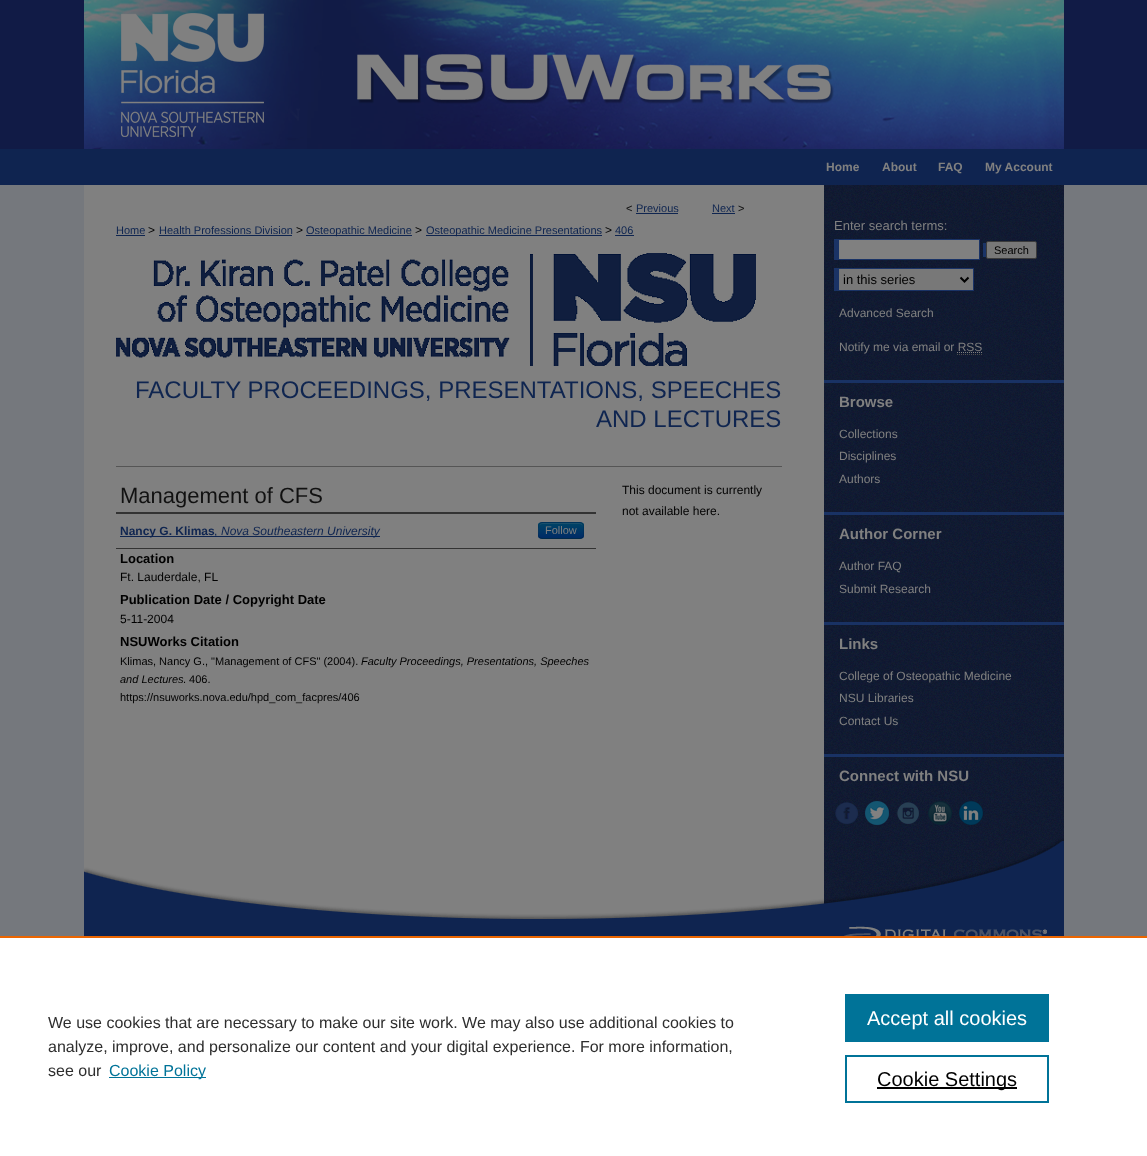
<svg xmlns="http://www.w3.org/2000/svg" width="1147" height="1156">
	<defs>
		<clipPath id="clip1"><rect x="538" y="522" width="46" height="17" rx="4" /></clipPath>
		<linearGradient id="g1" gradientUnits="userSpaceOnUse" x1="561" y1="523" x2="561" y2="538"><stop offset="0" stop-color="#004466" /><stop offset="1" stop-color="#002B66" /></linearGradient>
	</defs>
	<rect width="100%" height="100%" fill="#75787D" />
	<image x="0" y="0" width="1147" height="185" href="assets/img1.png" />
	<image x="84" y="0" width="240" height="149" href="assets/img2.png" />
	<image x="324" y="0" width="740" height="149" href="assets/img3.png" />
	<g font-family="Liberation Sans" font-size="12" font-weight="700" fill="#808080">
		<text x="826" y="171">Home</text>
		<text x="882" y="171">About</text>
		<text x="938" y="171">FAQ</text>
		<text x="985" y="171">My Account</text>
	</g>
	<image x="84" y="185" width="980" height="650" href="assets/img4.png" />
	<text x="626" y="212" font-family="Liberation Sans" font-size="11" fill="#111111">&lt;</text>
	<text x="636" y="212" font-family="Liberation Sans" font-size="11" fill="#0F2550">Previous</text>
	<rect x="636" y="213" width="42" height="1" fill="#0F2550" />
	<text x="712" y="212" font-family="Liberation Sans" font-size="11" fill="#0F2550">Next</text>
	<rect x="712" y="213" width="23" height="1" fill="#0F2550" />
	<text x="738" y="212" font-family="Liberation Sans" font-size="11" fill="#111111">&gt;</text>
	<text x="116" y="234" font-family="Liberation Sans" font-size="11" fill="#0F2550">Home</text>
	<rect x="116" y="235" width="29" height="1" fill="#0F2550" />
	<text x="148" y="234" font-family="Liberation Sans" font-size="12" fill="#000000">&gt;</text>
	<text x="159" y="234" font-family="Liberation Sans" font-size="11" fill="#0F2550">Health Professions Division</text>
	<rect x="159" y="235" width="133" height="1" fill="#0F2550" />
	<text x="296" y="234" font-family="Liberation Sans" font-size="12" fill="#000000">&gt;</text>
	<rect x="306" y="235" width="106" height="1" fill="#0F2550" />
	<text x="306" y="234" font-family="Liberation Sans" font-size="11" fill="#0F2550">Osteopathic Medicine</text>
	<text x="415" y="234" font-family="Liberation Sans" font-size="12" fill="#000000">&gt;</text>
	<rect x="426" y="235" width="176" height="1" fill="#0F2550" />
	<text x="426" y="234" font-family="Liberation Sans" font-size="11" fill="#0F2550">Osteopathic Medicine Presentations</text>
	<text x="605" y="234" font-family="Liberation Sans" font-size="12" fill="#000000">&gt;</text>
	<text x="615" y="234" font-family="Liberation Sans" font-size="11" fill="#0F2550">406</text>
	<rect x="615" y="235" width="19" height="1" fill="#0F2550" />
	<image x="116" y="253" width="640" height="113" href="assets/img5.png" />
	<g font-family="Liberation Sans" font-size="24" fill="#0F2550">
		<text x="135" y="398">FACULTY PROCEEDINGS, PRESENTATIONS, SPEECHES</text>
		<text x="596" y="427">AND LECTURES</text>
	</g>
	<rect x="116" y="466" width="666" height="1" fill="#555555" />
	<text x="120" y="503" font-family="Liberation Sans" font-size="22" fill="#111111">Management of CFS</text>
	<rect x="116" y="512" width="480" height="2" fill="#333333" />
	<rect x="116" y="548" width="480" height="1" fill="#333333" />
	<rect x="120" y="536" width="260" height="1" fill="#0F2550" />
	<text x="120" y="535" font-family="Liberation Sans" font-size="12" font-weight="700" fill="#0F2550">Nancy G. Klimas</text>
	<text x="214" y="535" font-family="Liberation Sans" font-size="12" fill="#0F2550">,</text>
	<text x="221" y="535" font-family="Liberation Sans" font-size="12" font-style="italic" fill="#0F2550">Nova Southeastern University</text>
	<rect x="538" y="522" width="46" height="17" rx="4" fill="#003A66" />
	<g clip-path="url(#clip1)">
		<rect x="538" y="523" width="46" height="15" fill="url(#g1)" />
	</g>
	<path d="M542 524H575C582 524 583 524 583 530V536V529C583 522 581 523 574 523H548C541 523 539 522 539 529V537C539 534 537 524 542 524Z" fill="#808080" fill-opacity="0.2" />
	<path d="M582.5 537.5C582 538 581 538.5 580 538.5H542C541 538.5 540 538 539.5 537.5" fill="none" stroke="#000000" stroke-opacity="0.25" />
	<path d="M539.5 537.5C538 535.5 538.5 532.5 538.5 530.5C538.5 521.5 539 522.5 548.5 522.5H573.5C583 522.5 583.5 521.5 583.5 530.5C583.5 532.5 584 535.5 582.5 537.5" fill="none" stroke="#000000" stroke-opacity="0.1" />
	<text x="545" y="534" font-family="Liberation Sans" font-size="11" fill="#808080">Follow</text>
	<text x="120" y="563" font-family="Liberation Sans" font-size="13" font-weight="700" fill="#000000">Location</text>
	<text x="120" y="581" font-family="Liberation Sans" font-size="12" fill="#000000">Ft. Lauderdale, FL</text>
	<text x="120" y="604" font-family="Liberation Sans" font-size="13" font-weight="700" fill="#000000">Publication Date / Copyright Date</text>
	<text x="120" y="623" font-family="Liberation Sans" font-size="12" fill="#000000">5-11-2004</text>
	<text x="120" y="646" font-family="Liberation Sans" font-size="13" font-weight="700" fill="#000000">NSUWorks Citation</text>
	<text x="120" y="665" font-family="Liberation Sans" font-size="11" fill="#000000">Klimas, Nancy G., "Management of CFS" (2004).</text>
	<g font-family="Liberation Sans" font-size="11" font-style="italic" fill="#000000">
		<text x="361" y="665">Faculty Proceedings, Presentations, Speeches</text>
		<text x="120" y="683">and Lectures</text>
	</g>
	<g font-family="Liberation Sans" font-size="11" fill="#000000">
		<text x="183" y="683">. 406.</text>
		<text x="120" y="701">https://nsuworks.nova.edu/hpd_com_facpres/406</text>
	</g>
	<g font-family="Liberation Sans" font-size="12" fill="#000000">
		<text x="622" y="494">This document is currently</text>
		<text x="622" y="515">not available here.</text>
	</g>
	<text x="834" y="230" font-family="Liberation Sans" font-size="13" fill="#808080">Enter search terms:</text>
	<rect x="834" y="239" width="146" height="21" fill="#1A3366" />
	<rect x="983" y="243" width="3" height="14" fill="#1A3366" />
	<rect x="839" y="240" width="140" height="19" fill="#808080" />
	<rect x="986.5" y="241.5" width="50" height="17" rx="1.5" fill="#787878" stroke="#3B3B3B" />
	<text x="994" y="254" font-family="Liberation Sans" font-size="11" fill="#000000">Search</text>
	<rect x="839" y="269" width="134" height="21" fill="#787878" />
	<rect x="834" y="268" width="140" height="1" fill="#1A3366" />
	<rect x="973" y="268" width="1" height="23" fill="#1A3366" />
	<rect x="834" y="290" width="140" height="1" fill="#1A3366" />
	<rect x="834" y="268" width="5" height="23" fill="#1A3366" />
	<path d="M960.5 277.5L964.5 281.5L968.5 277.5" fill="none" stroke="#000000" stroke-width="2" />
	<text x="843" y="284" font-family="Liberation Sans" font-size="13" fill="#000000">in this series</text>
	<g font-family="Liberation Sans" font-size="12" fill="#808080">
		<text x="839" y="317">Advanced Search</text>
		<text x="839" y="351">Notify me via email or RSS</text>
	</g>
	<path d="M957 352.5H982" fill="none" stroke="#808080" stroke-dasharray="1 1" />
	<path d="M957 354.5H982" fill="none" stroke="#4D4D4D" stroke-dasharray="1 1" />
	<rect x="824" y="380" width="240" height="3" fill="#193264" />
	<text x="839" y="407" font-family="Liberation Sans" font-size="15" font-weight="700" fill="#808080">Browse</text>
	<g font-family="Liberation Sans" font-size="12" fill="#808080">
		<text x="839" y="438">Collections</text>
		<text x="839" y="460">Disciplines</text>
		<text x="839" y="483">Authors</text>
	</g>
	<rect x="824" y="512" width="240" height="3" fill="#193264" />
	<text x="839" y="539" font-family="Liberation Sans" font-size="15" font-weight="700" fill="#808080">Author Corner</text>
	<g font-family="Liberation Sans" font-size="12" fill="#808080">
		<text x="839" y="570">Author FAQ</text>
		<text x="839" y="593">Submit Research</text>
	</g>
	<rect x="824" y="622" width="240" height="3" fill="#193264" />
	<text x="839" y="649" font-family="Liberation Sans" font-size="15" font-weight="700" fill="#808080">Links</text>
	<g font-family="Liberation Sans" font-size="12" fill="#808080">
		<text x="839" y="680">College of Osteopathic Medicine</text>
		<text x="839" y="702">NSU Libraries</text>
		<text x="839" y="725">Contact Us</text>
	</g>
	<rect x="824" y="754" width="240" height="3" fill="#193264" />
	<text x="839" y="781" font-family="Liberation Sans" font-size="15" font-weight="700" fill="#808080">Connect with NSU</text>
	<image x="835" y="802" width="23" height="22" href="assets/img6.png" />
	<image x="865" y="801" width="24" height="24" href="assets/img7.png" />
	<image x="897" y="802" width="22" height="22" href="assets/img8.png" />
	<image x="928" y="801" width="24" height="24" href="assets/img9.png" />
	<image x="959" y="801" width="24" height="24" href="assets/img10.png" />
	<image x="84" y="835" width="980" height="101" href="assets/img11.png" />
	<image x="839" y="926" width="208" height="10" href="assets/img12.png" />
	<rect x="0" y="938" width="1147" height="218" fill="#FFFFFF" />
	<rect x="0" y="936" width="1147" height="2" fill="#EB6500" />
	<g font-family="Liberation Sans" font-size="16" fill="#2E2E2E">
		<text x="48" y="1028">We use cookies that are necessary to make our site work. We may also use additional cookies to</text>
		<text x="48" y="1052">analyze, improve, and personalize our content and your digital experience. For more information,</text>
		<text x="48" y="1076">see our</text>
	</g>
	<rect x="109" y="1077" width="97" height="1" fill="#007398" />
	<text x="109" y="1076" font-family="Liberation Sans" font-size="16" fill="#007398">Cookie Policy</text>
	<rect x="845" y="994" width="204" height="48" fill="#007398" />
	<text x="867" y="1025" font-family="Liberation Sans" font-size="20" fill="#FFFFFF">Accept all cookies</text>
	<rect x="846" y="1056" width="202" height="46" fill="none" stroke="#007398" stroke-width="2" />
	<rect x="877" y="1087" width="140" height="2" fill="#000000" />
	<text x="877" y="1086" font-family="Liberation Sans" font-size="20" fill="#000000">Cookie Settings</text>
</svg>
